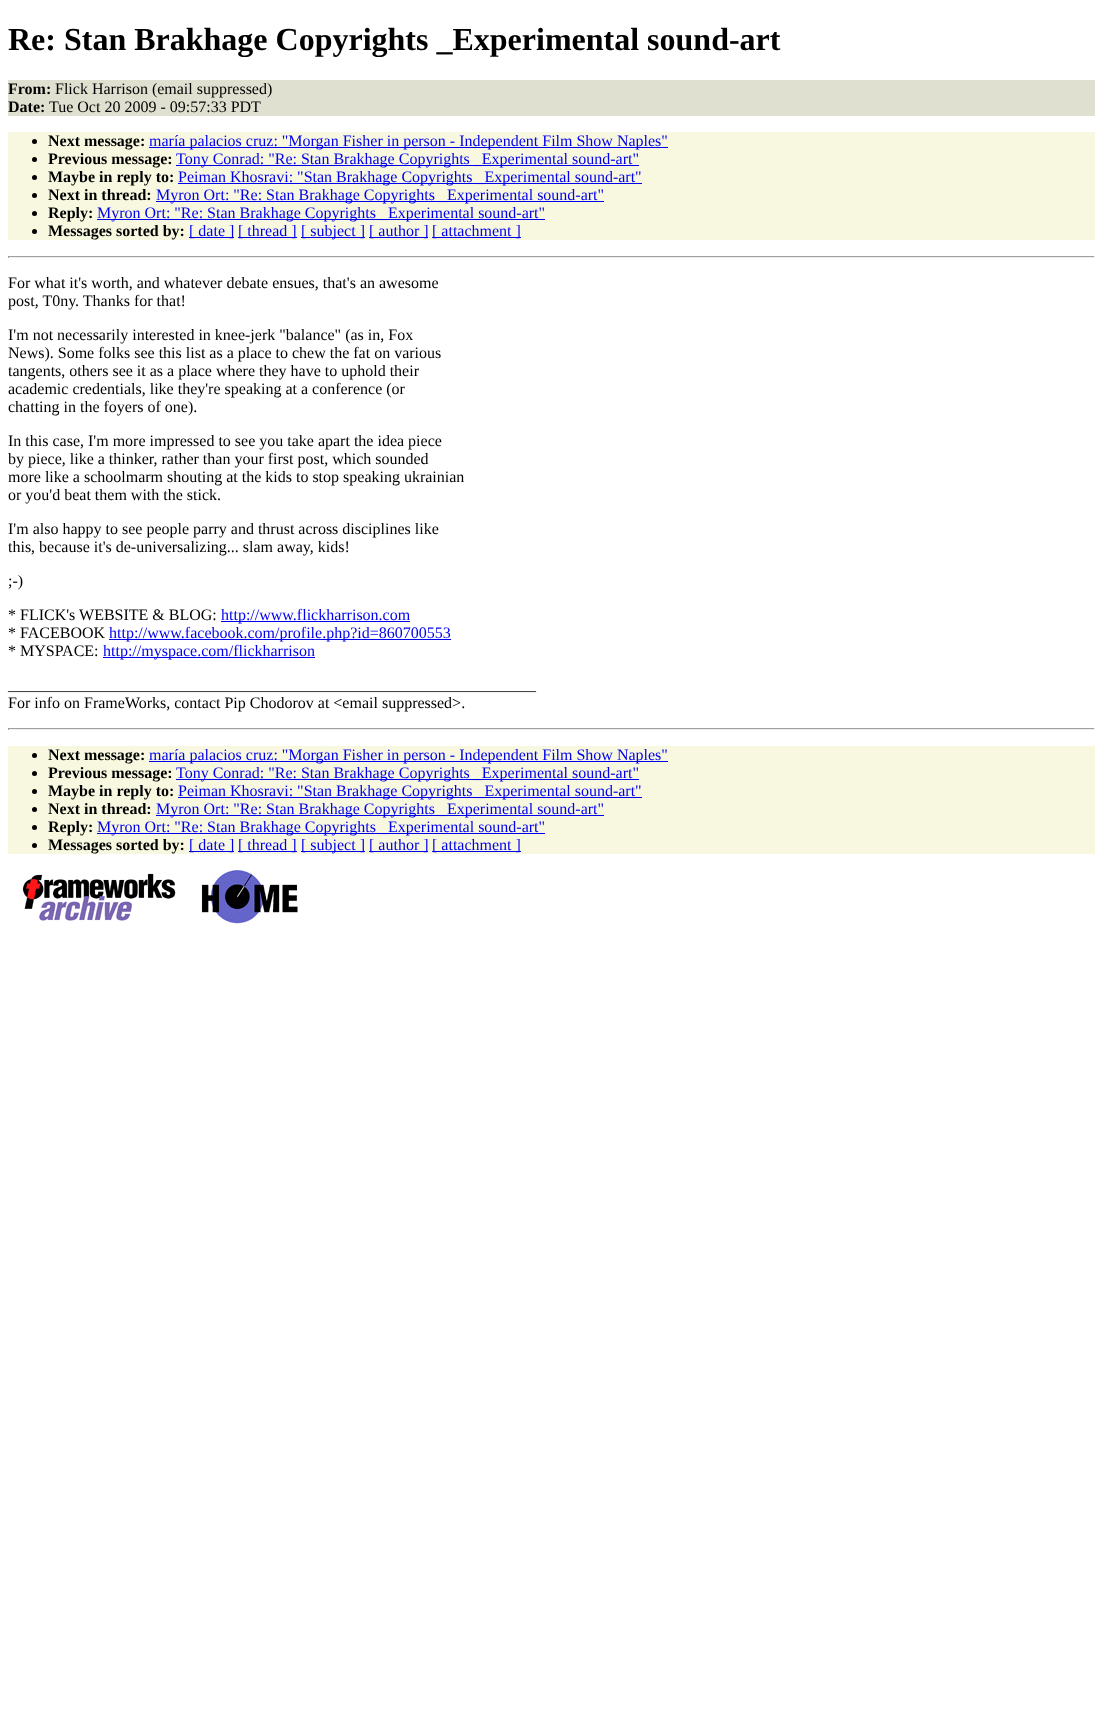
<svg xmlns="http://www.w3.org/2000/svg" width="1103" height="1719">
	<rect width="100%" height="100%" fill="#FFFFFF" />
	<text x="8" y="50" font-family="Liberation Serif" font-size="32" font-weight="700" fill="#000000">Re: Stan Brakhage Copyrights _Experimental sound-art</text>
	<rect x="8" y="80" width="1087" height="36" fill="#E0E0D0" />
	<text x="8" y="94" font-family="Liberation Serif" font-size="16" font-weight="700" fill="#000000">From:</text>
	<text x="55" y="94" font-family="Liberation Serif" font-size="16" fill="#000000">Flick Harrison (email suppressed)</text>
	<text x="8" y="112" font-family="Liberation Serif" font-size="16" font-weight="700" fill="#000000">Date:</text>
	<text x="49" y="112" font-family="Liberation Serif" font-size="16" fill="#000000">Tue Oct 20 2009 - 09:57:33 PDT</text>
	<rect x="8" y="132" width="1087" height="108" fill="#F8F8E0" />
	<circle cx="34.5" cy="141.5" r="2.5" fill="#000000" />
	<text x="48" y="146" font-family="Liberation Serif" font-size="16" font-weight="700" fill="#000000">Next message:</text>
	<rect x="149" y="147" width="519" height="1" fill="#0000EE" />
	<text x="149" y="146" font-family="Liberation Serif" font-size="16" fill="#0000EE">maría palacios cruz: "Morgan Fisher in person - Independent Film Show Naples"</text>
	<circle cx="34.5" cy="159.5" r="2.5" fill="#000000" />
	<text x="48" y="164" font-family="Liberation Serif" font-size="16" font-weight="700" fill="#000000">Previous message:</text>
	<rect x="176" y="165" width="463" height="1" fill="#0000EE" />
	<text x="176" y="164" font-family="Liberation Serif" font-size="16" fill="#0000EE">Tony Conrad: "Re: Stan Brakhage Copyrights _Experimental sound-art"</text>
	<circle cx="34.5" cy="177.5" r="2.5" fill="#000000" />
	<text x="48" y="182" font-family="Liberation Serif" font-size="16" font-weight="700" fill="#000000">Maybe in reply to:</text>
	<rect x="178" y="183" width="464" height="1" fill="#0000EE" />
	<text x="178" y="182" font-family="Liberation Serif" font-size="16" fill="#0000EE">Peiman Khosravi: "Stan Brakhage Copyrights _Experimental sound-art"</text>
	<circle cx="34.5" cy="195.5" r="2.5" fill="#000000" />
	<text x="48" y="200" font-family="Liberation Serif" font-size="16" font-weight="700" fill="#000000">Next in thread:</text>
	<rect x="156" y="201" width="448" height="1" fill="#0000EE" />
	<text x="156" y="200" font-family="Liberation Serif" font-size="16" fill="#0000EE">Myron Ort: "Re: Stan Brakhage Copyrights _Experimental sound-art"</text>
	<circle cx="34.5" cy="213.5" r="2.5" fill="#000000" />
	<text x="48" y="218" font-family="Liberation Serif" font-size="16" font-weight="700" fill="#000000">Reply:</text>
	<rect x="97" y="219" width="448" height="1" fill="#0000EE" />
	<text x="97" y="218" font-family="Liberation Serif" font-size="16" fill="#0000EE">Myron Ort: "Re: Stan Brakhage Copyrights _Experimental sound-art"</text>
	<circle cx="34.5" cy="231.5" r="2.5" fill="#000000" />
	<text x="48" y="236" font-family="Liberation Serif" font-size="16" font-weight="700" fill="#000000">Messages sorted by:</text>
	<rect x="189" y="237" width="45" height="1" fill="#0000EE" />
	<text x="189" y="236" font-family="Liberation Serif" font-size="16" fill="#0000EE">[ date ]</text>
	<rect x="238" y="237" width="59" height="1" fill="#0000EE" />
	<text x="238" y="236" font-family="Liberation Serif" font-size="16" fill="#0000EE">[ thread ]</text>
	<rect x="301" y="237" width="64" height="1" fill="#0000EE" />
	<text x="301" y="236" font-family="Liberation Serif" font-size="16" fill="#0000EE">[ subject ]</text>
	<rect x="369" y="237" width="59" height="1" fill="#0000EE" />
	<text x="369" y="236" font-family="Liberation Serif" font-size="16" fill="#0000EE">[ author ]</text>
	<rect x="432" y="237" width="89" height="1" fill="#0000EE" />
	<text x="432" y="236" font-family="Liberation Serif" font-size="16" fill="#0000EE">[ attachment ]</text>
	<rect x="8" y="256" width="1087" height="1" fill="#9F9F9F" />
	<rect x="1094" y="256" width="1" height="2" fill="#EEEEEE" />
	<rect x="8" y="257" width="1087" height="1" fill="#EEEEEE" />
	<rect x="8" y="256" width="1" height="2" fill="#9F9F9F" />
	<g font-family="Liberation Serif" font-size="16" fill="#000000">
		<text x="8" y="288">For what it's worth, and whatever debate ensues, that's an awesome</text>
		<text x="8" y="306">post, T0ny. Thanks for that!</text>
		<text x="8" y="340">I'm not necessarily interested in knee-jerk "balance" (as in, Fox</text>
		<text x="8" y="358">News). Some folks see this list as a place to chew the fat on various</text>
		<text x="8" y="376">tangents, others see it as a place where they have to uphold their</text>
		<text x="8" y="394">academic credentials, like they're speaking at a conference (or</text>
		<text x="8" y="412">chatting in the foyers of one).</text>
		<text x="8" y="446">In this case, I'm more impressed to see you take apart the idea piece</text>
		<text x="8" y="464">by piece, like a thinker, rather than your first post, which sounded</text>
		<text x="8" y="482">more like a schoolmarm shouting at the kids to stop speaking ukrainian</text>
		<text x="8" y="500">or you'd beat them with the stick.</text>
		<text x="8" y="534">I'm also happy to see people parry and thrust across disciplines like</text>
		<text x="8" y="552">this, because it's de-universalizing... slam away, kids!</text>
		<text x="8" y="586">;-)</text>
		<text x="8" y="620">* FLICK's WEBSITE &amp; BLOG:</text>
	</g>
	<rect x="221" y="621" width="189" height="1" fill="#0000EE" />
	<text x="221" y="620" font-family="Liberation Serif" font-size="16" fill="#0000EE">http://www.flickharrison.com</text>
	<text x="8" y="638" font-family="Liberation Serif" font-size="16" fill="#000000">* FACEBOOK</text>
	<rect x="109" y="639" width="342" height="1" fill="#0000EE" />
	<text x="109" y="638" font-family="Liberation Serif" font-size="16" fill="#0000EE">http://www.facebook.com/profile.php?id=860700553</text>
	<text x="8" y="656" font-family="Liberation Serif" font-size="16" fill="#000000">* MYSPACE:</text>
	<rect x="103" y="657" width="212" height="1" fill="#0000EE" />
	<text x="103" y="656" font-family="Liberation Serif" font-size="16" fill="#0000EE">http://myspace.com/flickharrison</text>
	<g font-family="Liberation Serif" font-size="16" fill="#000000">
		<text x="8" y="690">__________________________________________________________________</text>
		<text x="8" y="708">For info on FrameWorks, contact Pip Chodorov at &lt;email suppressed&gt;.</text>
	</g>
	<rect x="8" y="728" width="1087" height="1" fill="#9F9F9F" />
	<rect x="1094" y="728" width="1" height="2" fill="#EEEEEE" />
	<rect x="8" y="729" width="1087" height="1" fill="#EEEEEE" />
	<rect x="8" y="728" width="1" height="2" fill="#9F9F9F" />
	<rect x="8" y="746" width="1087" height="108" fill="#F8F8E0" />
	<circle cx="34.5" cy="755.5" r="2.5" fill="#000000" />
	<text x="48" y="760" font-family="Liberation Serif" font-size="16" font-weight="700" fill="#000000">Next message:</text>
	<rect x="149" y="761" width="519" height="1" fill="#0000EE" />
	<text x="149" y="760" font-family="Liberation Serif" font-size="16" fill="#0000EE">maría palacios cruz: "Morgan Fisher in person - Independent Film Show Naples"</text>
	<circle cx="34.5" cy="773.5" r="2.5" fill="#000000" />
	<text x="48" y="778" font-family="Liberation Serif" font-size="16" font-weight="700" fill="#000000">Previous message:</text>
	<rect x="176" y="779" width="463" height="1" fill="#0000EE" />
	<text x="176" y="778" font-family="Liberation Serif" font-size="16" fill="#0000EE">Tony Conrad: "Re: Stan Brakhage Copyrights _Experimental sound-art"</text>
	<circle cx="34.5" cy="791.5" r="2.5" fill="#000000" />
	<text x="48" y="796" font-family="Liberation Serif" font-size="16" font-weight="700" fill="#000000">Maybe in reply to:</text>
	<rect x="178" y="797" width="464" height="1" fill="#0000EE" />
	<text x="178" y="796" font-family="Liberation Serif" font-size="16" fill="#0000EE">Peiman Khosravi: "Stan Brakhage Copyrights _Experimental sound-art"</text>
	<circle cx="34.5" cy="809.5" r="2.5" fill="#000000" />
	<text x="48" y="814" font-family="Liberation Serif" font-size="16" font-weight="700" fill="#000000">Next in thread:</text>
	<rect x="156" y="815" width="448" height="1" fill="#0000EE" />
	<text x="156" y="814" font-family="Liberation Serif" font-size="16" fill="#0000EE">Myron Ort: "Re: Stan Brakhage Copyrights _Experimental sound-art"</text>
	<circle cx="34.5" cy="827.5" r="2.5" fill="#000000" />
	<text x="48" y="832" font-family="Liberation Serif" font-size="16" font-weight="700" fill="#000000">Reply:</text>
	<rect x="97" y="833" width="448" height="1" fill="#0000EE" />
	<text x="97" y="832" font-family="Liberation Serif" font-size="16" fill="#0000EE">Myron Ort: "Re: Stan Brakhage Copyrights _Experimental sound-art"</text>
	<circle cx="34.5" cy="845.5" r="2.5" fill="#000000" />
	<text x="48" y="850" font-family="Liberation Serif" font-size="16" font-weight="700" fill="#000000">Messages sorted by:</text>
	<rect x="189" y="851" width="45" height="1" fill="#0000EE" />
	<text x="189" y="850" font-family="Liberation Serif" font-size="16" fill="#0000EE">[ date ]</text>
	<rect x="238" y="851" width="59" height="1" fill="#0000EE" />
	<text x="238" y="850" font-family="Liberation Serif" font-size="16" fill="#0000EE">[ thread ]</text>
	<rect x="301" y="851" width="64" height="1" fill="#0000EE" />
	<text x="301" y="850" font-family="Liberation Serif" font-size="16" fill="#0000EE">[ subject ]</text>
	<rect x="369" y="851" width="59" height="1" fill="#0000EE" />
	<text x="369" y="850" font-family="Liberation Serif" font-size="16" fill="#0000EE">[ author ]</text>
	<rect x="432" y="851" width="89" height="1" fill="#0000EE" />
	<text x="432" y="850" font-family="Liberation Serif" font-size="16" fill="#0000EE">[ attachment ]</text>
	<image x="22" y="873" width="154" height="48" href="assets/img1.png" />
	<image x="201" y="870" width="97" height="54" href="assets/img2.png" />
</svg>
